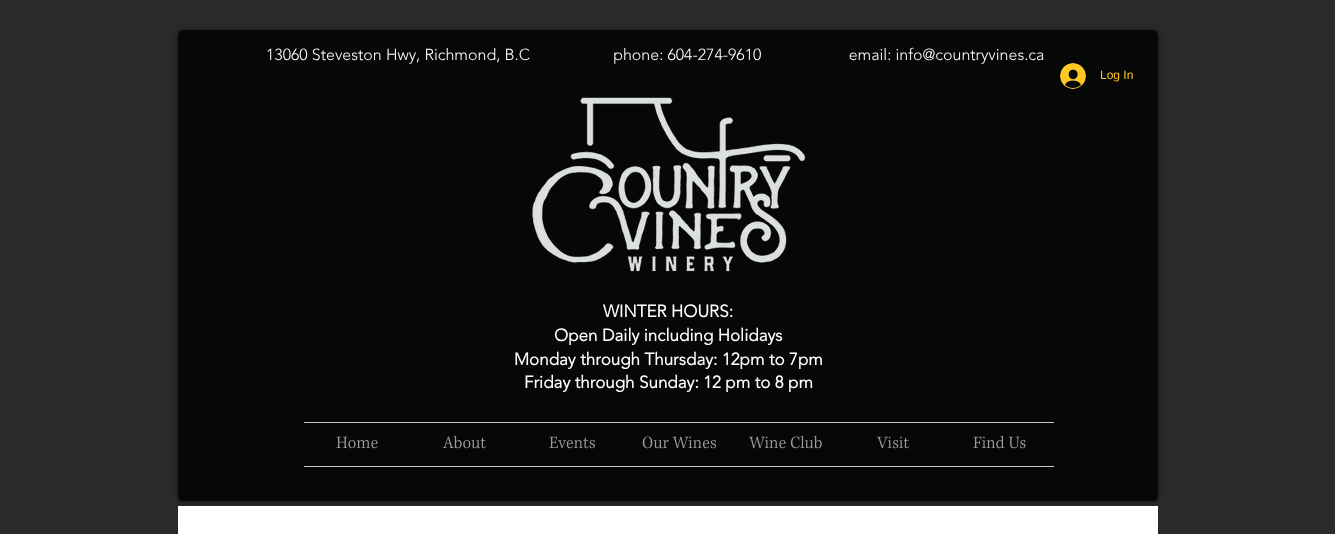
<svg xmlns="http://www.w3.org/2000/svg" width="1335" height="534">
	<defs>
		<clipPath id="clip1"><path d="M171 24H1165V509H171ZM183 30H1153C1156 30 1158 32 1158 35V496C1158 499 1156 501 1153 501H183C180 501 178 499 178 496V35C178 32 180 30 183 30Z" clip-rule="evenodd" /></clipPath>
	</defs>
	<rect width="100%" height="100%" fill="#2A2A2A" />
	<g clip-path="url(#clip1)">
		<rect x="178" y="31" width="980" height="471" rx="5" fill="#000000" fill-opacity="0.6" filter="blur(2px)" />
	</g>
	<rect x="178" y="30" width="980" height="471" rx="5" fill="#000000" fill-opacity="0.83" />
	<text x="266" y="60" font-family="'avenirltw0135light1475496'" font-size="16" font-weight="300" fill="#FFFFFF" xml:space="preserve">13060 Steveston Hwy, Richmond, B.C                    phone: 604-274-9610                     email: info@countryvines.ca</text>
	<image x="532" y="97" width="273" height="175" href="assets/img1.png" />
	<g font-family="'avenirltw0135light1475496'" font-size="17" font-weight="700" fill="#FFFFFF">
		<text x="603" y="317">WINTER HOURS:</text>
		<text x="554" y="341">Open Daily including Holidays</text>
		<text x="514" y="365">Monday through Thursday: 12pm to 7pm</text>
		<text x="524" y="388">Friday through Sunday: 12 pm to 8 pm</text>
	</g>
	<rect x="304" y="422" width="750" height="1" fill="#CACACA" />
	<rect x="304" y="466" width="750" height="1" fill="#CACACA" />
	<image x="336" y="436" width="42" height="13" href="assets/img2.png" />
	<image x="442" y="436" width="44" height="13" href="assets/img3.png" />
	<image x="549" y="436" width="46" height="13" href="assets/img4.png" />
	<image x="642" y="436" width="75" height="13" href="assets/img5.png" />
	<image x="748" y="436" width="74" height="13" href="assets/img6.png" />
	<image x="876" y="436" width="33" height="13" href="assets/img7.png" />
	<image x="973" y="436" width="53" height="13" href="assets/img8.png" />
	<image x="1060" y="63" width="26" height="26" href="assets/img9.png" />
	<text x="1100" y="79" font-family="Liberation Sans" font-size="12" fill="#FFC824">Log In</text>
	<rect x="178" y="506" width="980" height="28" fill="#FFFFFF" />
</svg>
